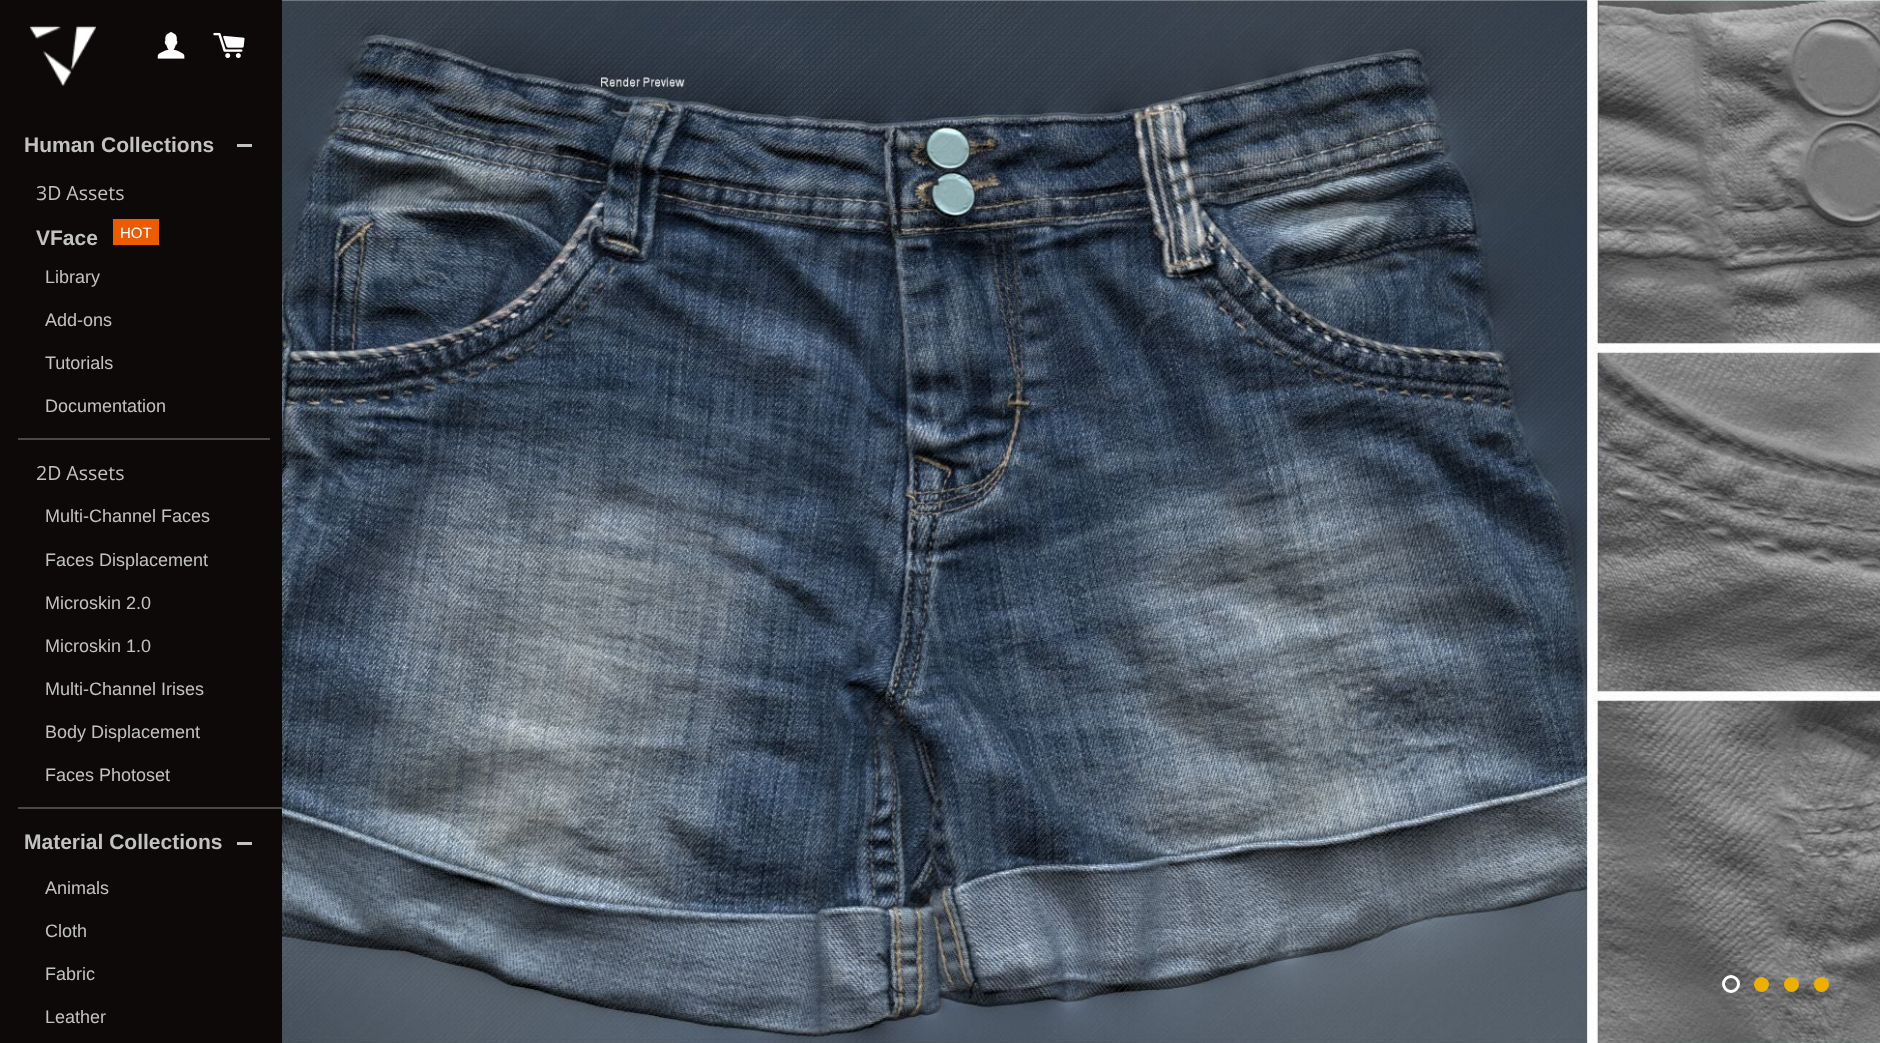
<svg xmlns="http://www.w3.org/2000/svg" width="1880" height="1043">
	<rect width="100%" height="100%" fill="#0D0909" />
	<image x="30" y="26" width="66" height="60" href="assets/img1.png" />
	<image x="157" y="32" width="28" height="27" href="assets/img2.png" />
	<image x="213" y="32" width="32" height="26" href="assets/img3.png" />
	<text x="24" y="152" font-family="Liberation Sans" font-size="21" font-weight="700" fill="#C2C2C2">Human Collections</text>
	<rect x="237" y="144" width="15" height="3" fill="#C2C2C2" />
	<text x="36" y="200" font-family="Open Sans" font-size="19.5" fill="#C2C2C2">3D Assets</text>
	<text x="36" y="245" font-family="Liberation Sans" font-size="21" font-weight="700" fill="#C2C2C2">VFace</text>
	<rect x="113" y="219" width="46" height="26" fill="#ED5B00" />
	<text x="120" y="238" font-family="Liberation Sans" font-size="15" fill="#FFFFFF">HOT</text>
	<g font-family="Liberation Sans" font-size="18" fill="#C2C2C2">
		<text x="45" y="283">Library</text>
		<text x="45" y="326">Add-ons</text>
		<text x="45" y="369">Tutorials</text>
		<text x="45" y="412">Documentation</text>
	</g>
	<rect x="18" y="438" width="252" height="2" fill="#494949" />
	<text x="36" y="480" font-family="Open Sans" font-size="19.5" fill="#C2C2C2">2D Assets</text>
	<g font-family="Liberation Sans" font-size="18" fill="#C2C2C2">
		<text x="45" y="522">Multi-Channel Faces</text>
		<text x="45" y="566">Faces Displacement</text>
		<text x="45" y="609">Microskin 2.0</text>
		<text x="45" y="652">Microskin 1.0</text>
		<text x="45" y="695">Multi-Channel Irises</text>
		<text x="45" y="738">Body Displacement</text>
		<text x="45" y="781">Faces Photoset</text>
	</g>
	<rect x="18" y="807" width="264" height="2" fill="#494949" />
	<text x="24" y="849" font-family="Liberation Sans" font-size="21" font-weight="700" fill="#C2C2C2">Material Collections</text>
	<rect x="237" y="842" width="15" height="3" fill="#C2C2C2" />
	<g font-family="Liberation Sans" font-size="18" fill="#C2C2C2">
		<text x="45" y="894">Animals</text>
		<text x="45" y="937">Cloth</text>
		<text x="45" y="980">Fabric</text>
		<text x="45" y="1023">Leather</text>
	</g>
	<image x="282" y="0" width="1598" height="1043" href="assets/img4.png" />
	<circle cx="1731" cy="984" r="7.5" fill="none" stroke="#FFFFFF" stroke-width="3" />
	<circle cx="1761.5" cy="984.5" r="7.5" fill="#EDB000" />
	<circle cx="1791.5" cy="984.5" r="7.5" fill="#EDB000" />
	<circle cx="1821.5" cy="984.5" r="7.5" fill="#EDB000" />
</svg>
